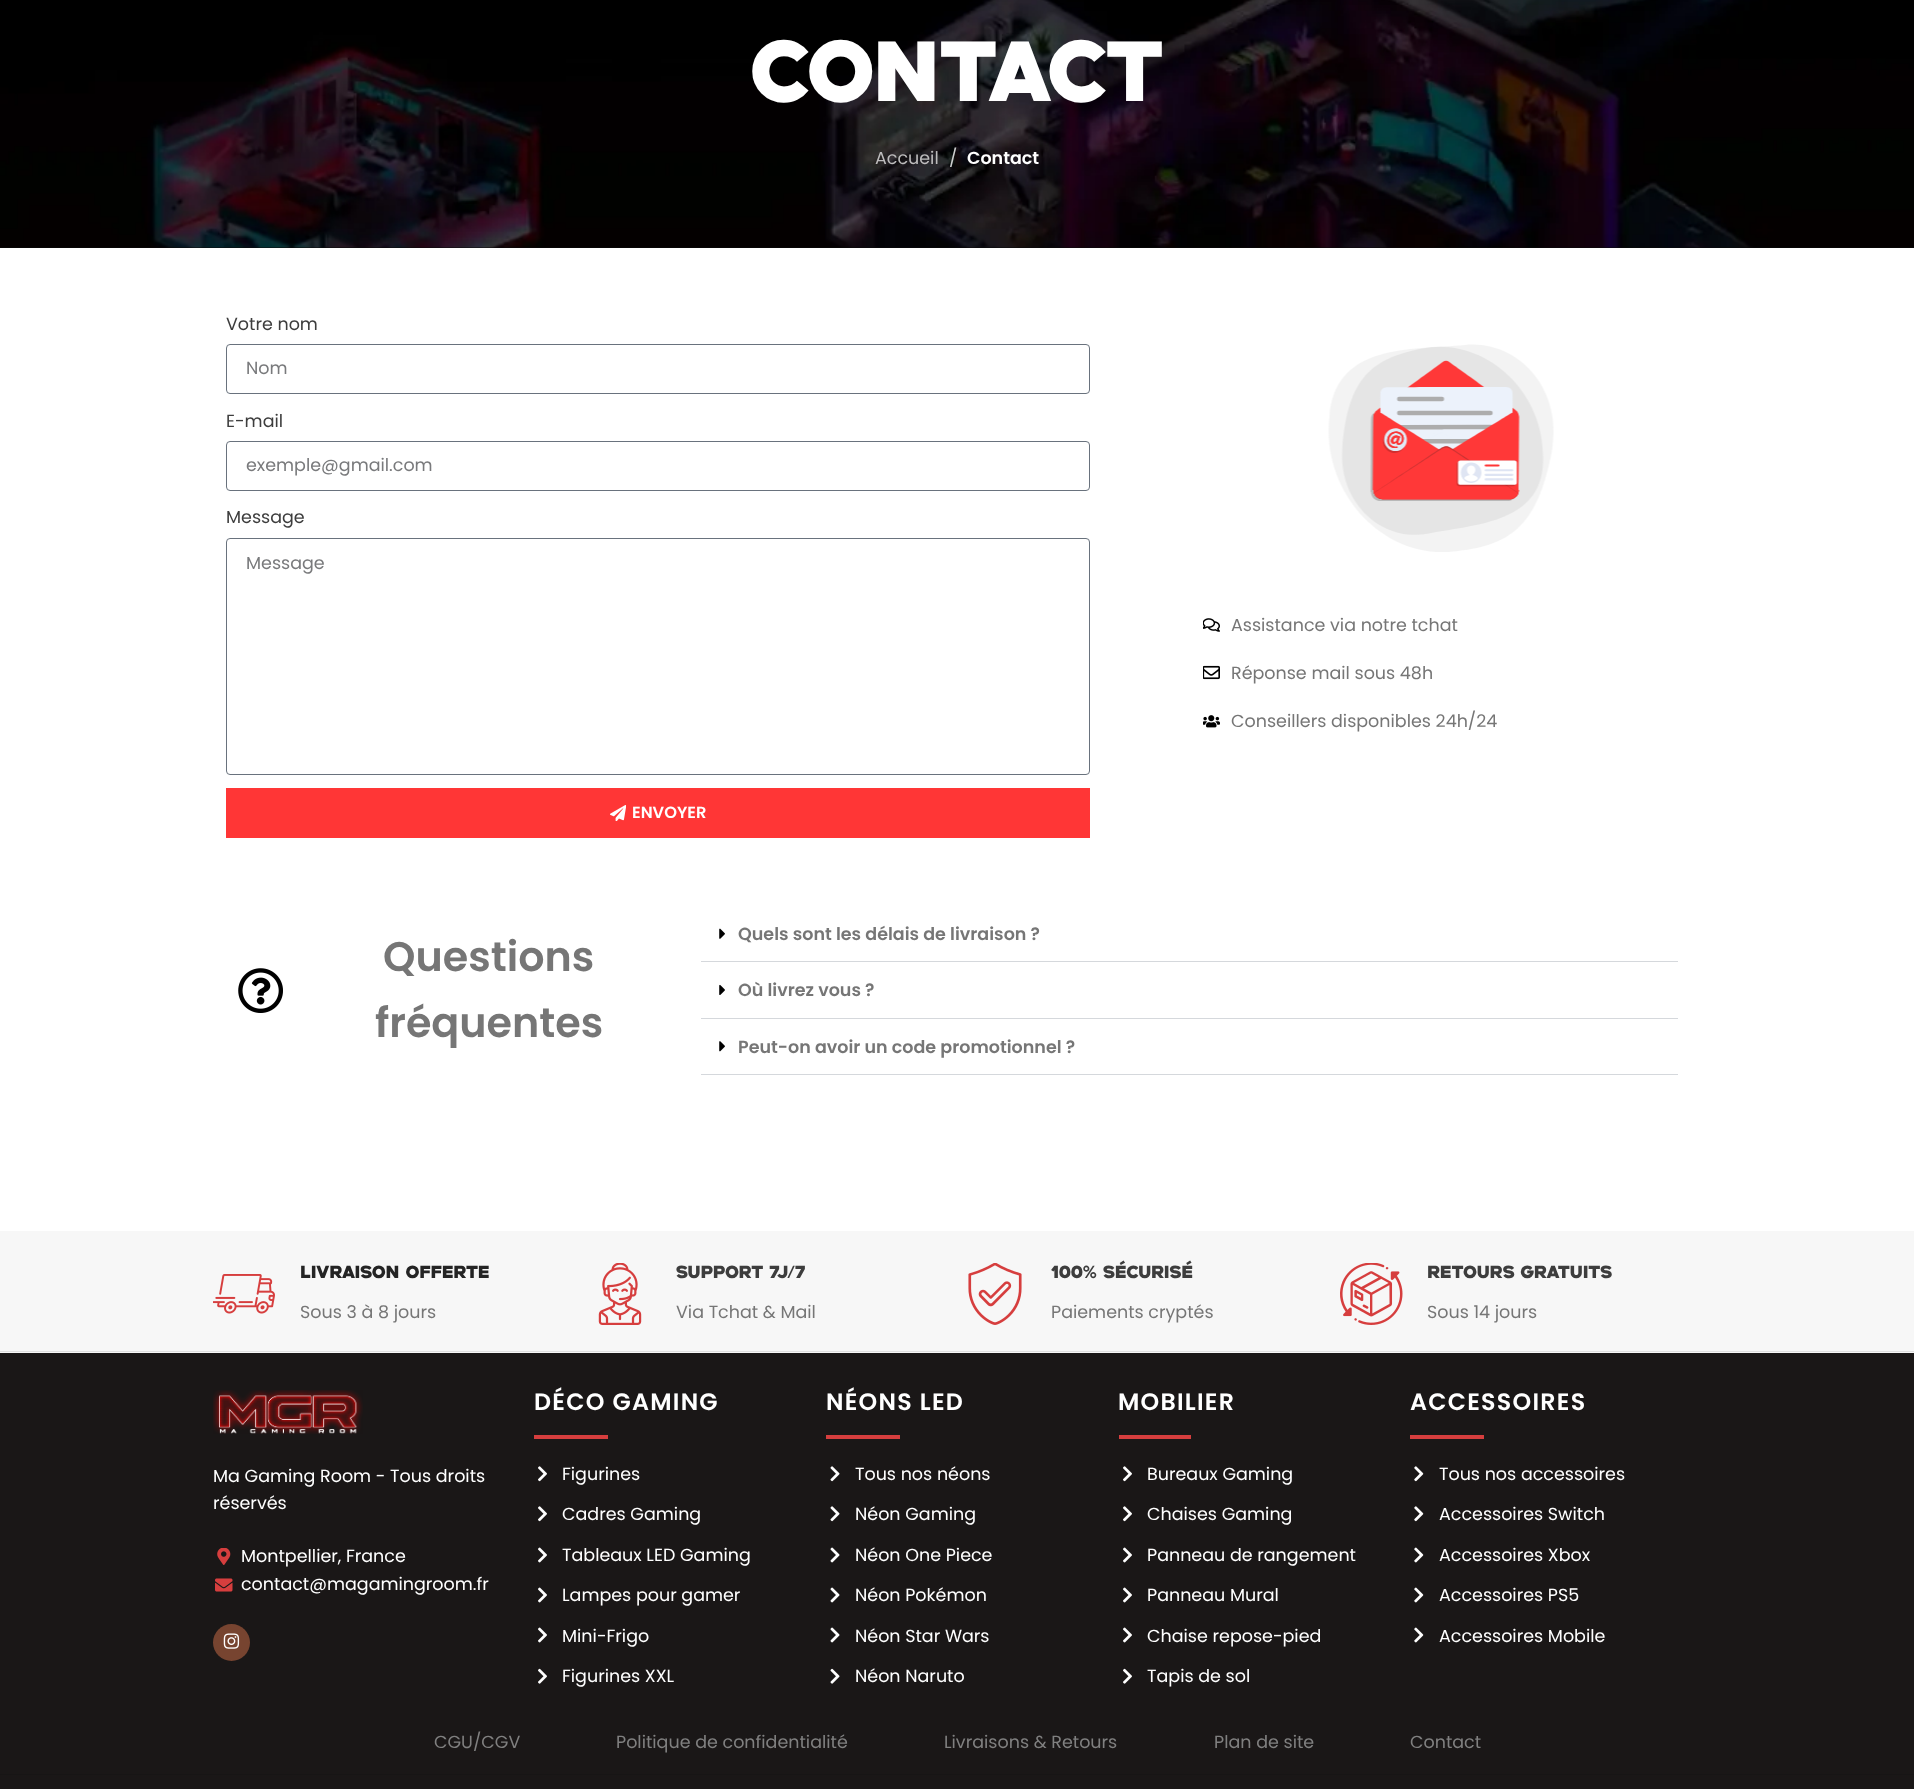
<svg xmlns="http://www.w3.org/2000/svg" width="1914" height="1789">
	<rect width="100%" height="100%" fill="#FFFFFF" />
	<rect x="0" y="247" width="1914" height="1" fill="#0A0A0A" />
	<image x="0" y="0" width="1914" height="248" href="assets/img1.png" />
	<text x="751" y="101" font-family="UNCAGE" font-size="85" font-weight="700" fill="#FFFFFF">CONTACT</text>
	<text x="875" y="164" font-family="Poppins" font-size="17.5" fill="#BDBCBD">Accueil</text>
	<text x="949" y="164" font-family="Poppins" font-size="17.5" fill="#CECFCF">/</text>
	<text x="967" y="164" font-family="Poppins" font-size="17.5" font-weight="600" fill="#FFFFFF">Contact</text>
	<text x="226" y="330" font-family="Poppins" font-size="17.5" fill="#3D3D3D">Votre nom</text>
	<rect x="226.5" y="344.5" width="863" height="49" rx="3.5" fill="none" stroke="#69727D" />
	<text x="246" y="374" font-family="Poppins" font-size="17.5" fill="#797A7C">Nom</text>
	<text x="226" y="427" font-family="Poppins" font-size="17.5" fill="#3D3D3D">E-mail</text>
	<rect x="226.5" y="441.5" width="863" height="49" rx="3.5" fill="none" stroke="#69727D" />
	<text x="246" y="471" font-family="Poppins" font-size="17.5" fill="#797A7C">exemple@gmail.com</text>
	<text x="226" y="523" font-family="Poppins" font-size="17.5" fill="#3D3D3D">Message</text>
	<rect x="226.5" y="538.5" width="863" height="236" rx="3.5" fill="none" stroke="#69727D" />
	<text x="246" y="569" font-family="Poppins" font-size="17.5" fill="#797A7C">Message</text>
	<rect x="226" y="788" width="864" height="50" fill="#FF3636" />
	<image x="610" y="805" width="16" height="16" href="assets/img2.png" />
	<text x="632" y="818" font-family="Poppins" font-size="16.25" font-weight="600" fill="#FFFFFF">ENVOYER</text>
	<image x="1328" y="344" width="226" height="208" href="assets/img3.png" />
	<image x="1203" y="618" width="17" height="14" href="assets/img4.png" />
	<text x="1231" y="631" font-family="Poppins" font-size="17.5" fill="#767676">Assistance via notre tchat</text>
	<image x="1203" y="665" width="17" height="15" href="assets/img5.png" />
	<text x="1231" y="679" font-family="Poppins" font-size="17.5" fill="#767676">Réponse mail sous 48h</text>
	<image x="1203" y="715" width="17" height="13" href="assets/img6.png" />
	<text x="1231" y="727" font-family="Poppins" font-size="17.5" fill="#767676">Conseillers disponibles 24h/24</text>
	<image x="238" y="968" width="45" height="45" href="assets/img7.png" />
	<g font-family="Poppins" font-size="41.25" font-weight="600" fill="#767676">
		<text x="383" y="971">Questions</text>
		<text x="375" y="1037">fréquentes</text>
	</g>
	<rect x="701" y="961" width="977" height="1" fill="#D5D8DC" />
	<image x="719" y="928" width="6" height="11" href="assets/img8.png" />
	<text x="738" y="940" font-family="Poppins" font-size="17.5" font-weight="600" fill="#767676">Quels sont les délais de livraison ?</text>
	<rect x="701" y="1018" width="977" height="1" fill="#D5D8DC" />
	<image x="719" y="984" width="6" height="11" href="assets/img9.png" />
	<text x="738" y="996" font-family="Poppins" font-size="17.5" font-weight="600" fill="#767676">Où livrez vous ?</text>
	<rect x="701" y="1074" width="977" height="1" fill="#D5D8DC" />
	<image x="719" y="1041" width="6" height="11" href="assets/img10.png" />
	<text x="738" y="1053" font-family="Poppins" font-size="17.5" font-weight="600" fill="#767676">Peut-on avoir un code promotionnel ?</text>
	<rect x="0" y="1353" width="1914" height="436" fill="#1A1717" />
	<rect x="0" y="1231" width="1914" height="122" fill="#F7F7F7" />
	<rect x="0" y="1351" width="1914" height="1" fill="#DFDFDF" />
	<image x="213" y="1274" width="62" height="40" href="assets/img11.png" />
	<text x="300" y="1278" font-family="UNCAGE" font-size="17.5" font-weight="700" fill="#242424">LIVRAISON OFFERTE</text>
	<text x="300" y="1318" font-family="Poppins" font-size="17.5" fill="#767676">Sous 3 à 8 jours</text>
	<image x="598" y="1263" width="44" height="62" href="assets/img12.png" />
	<text x="676" y="1278" font-family="UNCAGE" font-size="17.5" font-weight="700" fill="#3D3D3D">SUPPORT 7J/7</text>
	<text x="676" y="1318" font-family="Poppins" font-size="17.5" fill="#767676">Via Tchat &amp; Mail</text>
	<image x="968" y="1263" width="54" height="62" href="assets/img13.png" />
	<text x="1051" y="1278" font-family="UNCAGE" font-size="17.5" font-weight="700" fill="#3D3D3D">100% SÉCURISÉ</text>
	<text x="1051" y="1318" font-family="Poppins" font-size="17.5" fill="#767676">Paiements cryptés</text>
	<image x="1340" y="1263" width="63" height="62" href="assets/img14.png" />
	<text x="1427" y="1278" font-family="UNCAGE" font-size="17.5" font-weight="700" fill="#3D3D3D">RETOURS GRATUITS</text>
	<text x="1427" y="1318" font-family="Poppins" font-size="17.5" fill="#767676">Sous 14 jours</text>
	<image x="213" y="1390" width="150" height="44" href="assets/img15.png" />
	<g font-family="Poppins" font-size="17.5" fill="#FFFFFF">
		<text x="213" y="1482">Ma Gaming Room - Tous droits</text>
		<text x="213" y="1509">réservés</text>
	</g>
	<image x="217" y="1548" width="14" height="17" href="assets/img16.png" />
	<text x="241" y="1562" font-family="Poppins" font-size="17.5" fill="#FFFFFF">Montpellier, France</text>
	<image x="215" y="1578" width="18" height="14" href="assets/img17.png" />
	<text x="241" y="1590" font-family="Poppins" font-size="17.5" fill="#FFFFFF">contact@magamingroom.fr</text>
	<circle cx="231.5" cy="1642.5" r="18.5" fill="#774430" />
	<image x="223" y="1633" width="17" height="16" href="assets/img18.png" />
	<text x="534" y="1410" font-family="Poppins" font-size="23.75" font-weight="600" letter-spacing="1.25" fill="#FFFFFF">DÉCO GAMING</text>
	<rect x="534" y="1435" width="74" height="4" fill="#D63E3E" />
	<image x="538" y="1466" width="9" height="16" href="assets/img19.png" />
	<text x="562" y="1480" font-family="Poppins" font-size="17.5" fill="#FFFFFF">Figurines</text>
	<image x="538" y="1506" width="9" height="16" href="assets/img19.png" />
	<text x="562" y="1520" font-family="Poppins" font-size="17.5" fill="#FFFFFF">Cadres Gaming</text>
	<image x="538" y="1547" width="9" height="16" href="assets/img20.png" />
	<text x="562" y="1561" font-family="Poppins" font-size="17.5" fill="#FFFFFF">Tableaux LED Gaming</text>
	<image x="538" y="1587" width="9" height="16" href="assets/img20.png" />
	<text x="562" y="1601" font-family="Poppins" font-size="17.5" fill="#FFFFFF">Lampes pour gamer</text>
	<image x="538" y="1627" width="9" height="16" href="assets/img20.png" />
	<text x="562" y="1642" font-family="Poppins" font-size="17.5" fill="#FFFFFF">Mini-Frigo</text>
	<image x="538" y="1668" width="9" height="16" href="assets/img21.png" />
	<text x="562" y="1682" font-family="Poppins" font-size="17.5" fill="#FFFFFF">Figurines XXL</text>
	<text x="826" y="1410" font-family="Poppins" font-size="23.75" font-weight="600" letter-spacing="1.25" fill="#FFFFFF">NÉONS LED</text>
	<rect x="826" y="1435" width="74" height="4" fill="#D63E3E" />
	<image x="830" y="1466" width="10" height="16" href="assets/img22.png" />
	<text x="855" y="1480" font-family="Poppins" font-size="17.5" fill="#FFFFFF">Tous nos néons</text>
	<image x="830" y="1506" width="10" height="16" href="assets/img22.png" />
	<text x="855" y="1520" font-family="Poppins" font-size="17.5" fill="#FFFFFF">Néon Gaming</text>
	<image x="830" y="1547" width="10" height="16" href="assets/img23.png" />
	<text x="855" y="1561" font-family="Poppins" font-size="17.5" fill="#FFFFFF">Néon One Piece</text>
	<image x="830" y="1587" width="10" height="16" href="assets/img23.png" />
	<text x="855" y="1601" font-family="Poppins" font-size="17.5" fill="#FFFFFF">Néon Pokémon</text>
	<image x="830" y="1627" width="10" height="16" href="assets/img23.png" />
	<text x="855" y="1642" font-family="Poppins" font-size="17.5" fill="#FFFFFF">Néon Star Wars</text>
	<image x="830" y="1668" width="10" height="16" href="assets/img24.png" />
	<text x="855" y="1682" font-family="Poppins" font-size="17.5" fill="#FFFFFF">Néon Naruto</text>
	<text x="1118" y="1410" font-family="Poppins" font-size="23.75" font-weight="600" letter-spacing="1.25" fill="#FFFFFF">MOBILIER</text>
	<rect x="1119" y="1435" width="72" height="4" fill="#D63E3E" />
	<image x="1123" y="1466" width="9" height="16" href="assets/img19.png" />
	<text x="1147" y="1480" font-family="Poppins" font-size="17.5" fill="#FFFFFF">Bureaux Gaming</text>
	<image x="1123" y="1506" width="9" height="16" href="assets/img19.png" />
	<text x="1147" y="1520" font-family="Poppins" font-size="17.5" fill="#FFFFFF">Chaises Gaming</text>
	<image x="1123" y="1547" width="9" height="16" href="assets/img20.png" />
	<text x="1147" y="1561" font-family="Poppins" font-size="17.5" fill="#FFFFFF">Panneau de rangement</text>
	<image x="1123" y="1587" width="9" height="16" href="assets/img20.png" />
	<text x="1147" y="1601" font-family="Poppins" font-size="17.5" fill="#FFFFFF">Panneau Mural</text>
	<image x="1123" y="1627" width="9" height="16" href="assets/img20.png" />
	<text x="1147" y="1642" font-family="Poppins" font-size="17.5" fill="#FFFFFF">Chaise repose-pied</text>
	<image x="1123" y="1668" width="9" height="16" href="assets/img21.png" />
	<text x="1147" y="1682" font-family="Poppins" font-size="17.5" fill="#FFFFFF">Tapis de sol</text>
	<text x="1410" y="1410" font-family="Poppins" font-size="23.75" font-weight="600" letter-spacing="1.25" fill="#FFFFFF">ACCESSOIRES</text>
	<rect x="1410" y="1435" width="74" height="4" fill="#D63E3E" />
	<image x="1414" y="1466" width="10" height="16" href="assets/img25.png" />
	<text x="1439" y="1480" font-family="Poppins" font-size="17.5" fill="#FFFFFF">Tous nos accessoires</text>
	<image x="1414" y="1506" width="10" height="16" href="assets/img25.png" />
	<text x="1439" y="1520" font-family="Poppins" font-size="17.5" fill="#FFFFFF">Accessoires Switch</text>
	<image x="1414" y="1547" width="10" height="16" href="assets/img26.png" />
	<text x="1439" y="1561" font-family="Poppins" font-size="17.5" fill="#FFFFFF">Accessoires Xbox</text>
	<image x="1414" y="1587" width="10" height="16" href="assets/img26.png" />
	<text x="1439" y="1601" font-family="Poppins" font-size="17.5" fill="#FFFFFF">Accessoires PS5</text>
	<image x="1414" y="1627" width="10" height="16" href="assets/img26.png" />
	<text x="1439" y="1642" font-family="Poppins" font-size="17.5" fill="#FFFFFF">Accessoires Mobile</text>
	<g font-family="Poppins" font-size="17.5" fill="#808080">
		<text x="434" y="1748">CGU/CGV</text>
		<text x="616" y="1748">Politique de confidentialité</text>
		<text x="944" y="1748">Livraisons &amp; Retours</text>
		<text x="1214" y="1748">Plan de site</text>
		<text x="1410" y="1748">Contact</text>
	</g>
	<rect x="0" y="1774" width="1914" height="1" fill="#171515" />
</svg>
